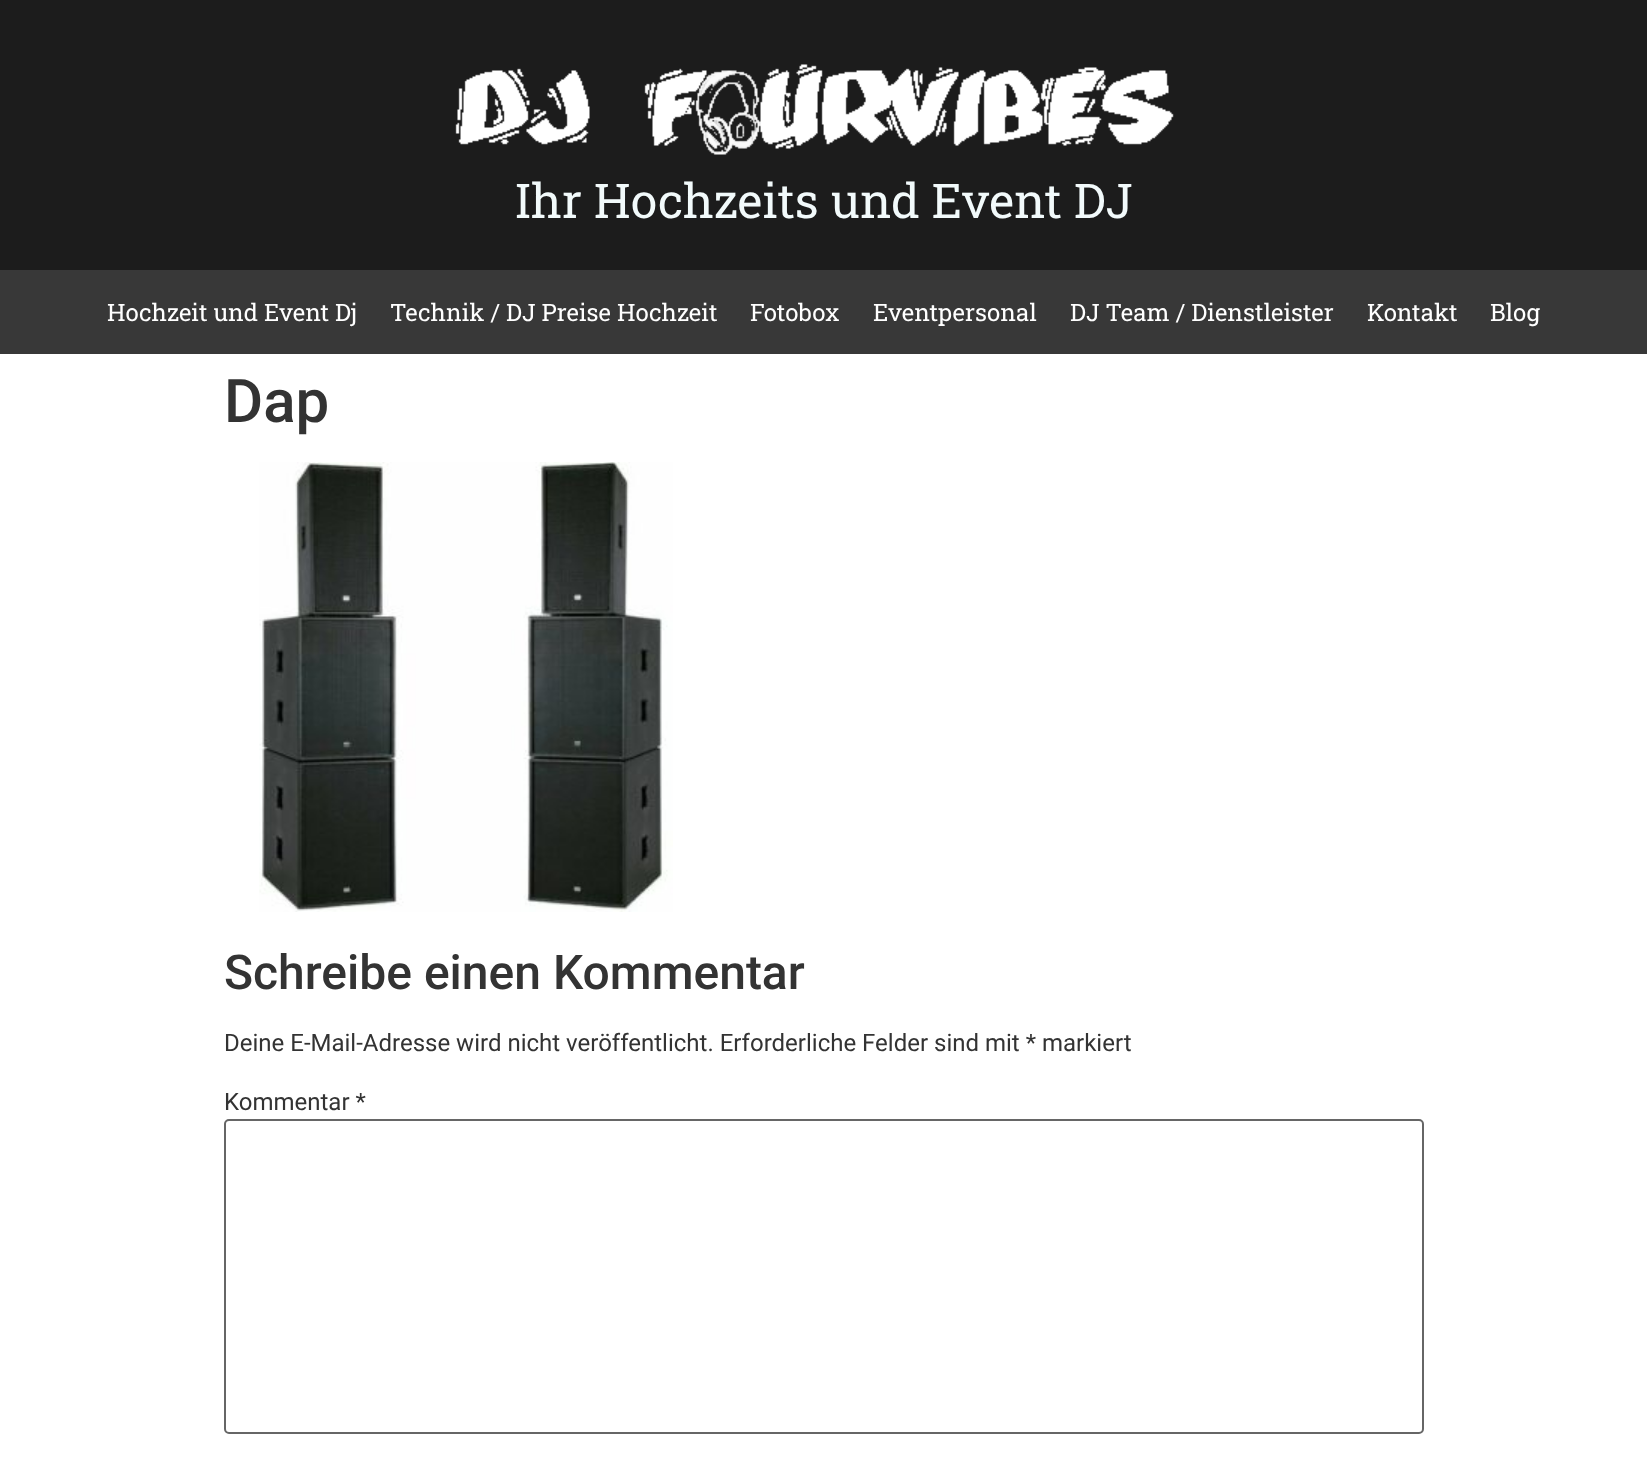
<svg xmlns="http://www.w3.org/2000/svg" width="1647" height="1480">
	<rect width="100%" height="100%" fill="#FFFFFF" />
	<rect x="0" y="0" width="1647" height="270" fill="#1C1C1C" />
	<image x="455" y="64" width="719" height="91" href="assets/img1.png" />
	<text x="515" y="218" font-family="Roboto Slab" font-size="48" fill="#F2FAFB">Ihr Hochzeits und Event DJ</text>
	<rect x="0" y="270" width="1647" height="84" fill="#383838" />
	<g font-family="Roboto Slab" font-size="24" fill="#FFFFFF">
		<text x="107" y="321">Hochzeit und Event Dj</text>
		<text x="390" y="321">Technik / DJ Preise Hochzeit</text>
		<text x="750" y="321">Fotobox</text>
		<text x="873" y="321">Eventpersonal</text>
		<text x="1070" y="321">DJ Team / Dienstleister</text>
		<text x="1367" y="321">Kontakt</text>
		<text x="1490" y="321">Blog</text>
	</g>
	<text x="224" y="422" font-family="Roboto" font-size="60" font-weight="500" fill="#333333">Dap</text>
	<image x="259" y="462" width="414" height="450" href="assets/img2.png" />
	<text x="224" y="989" font-family="Roboto" font-size="48" font-weight="500" fill="#333333">Schreibe einen Kommentar</text>
	<g font-family="Roboto" font-size="24" fill="#333333">
		<text x="224" y="1051">Deine E-Mail-Adresse wird nicht veröffentlicht. Erforderliche Felder sind mit * markiert</text>
		<text x="224" y="1110">Kommentar *</text>
	</g>
	<rect x="225" y="1120" width="1198" height="313" rx="4" fill="none" stroke="#666666" stroke-width="2" />
</svg>
